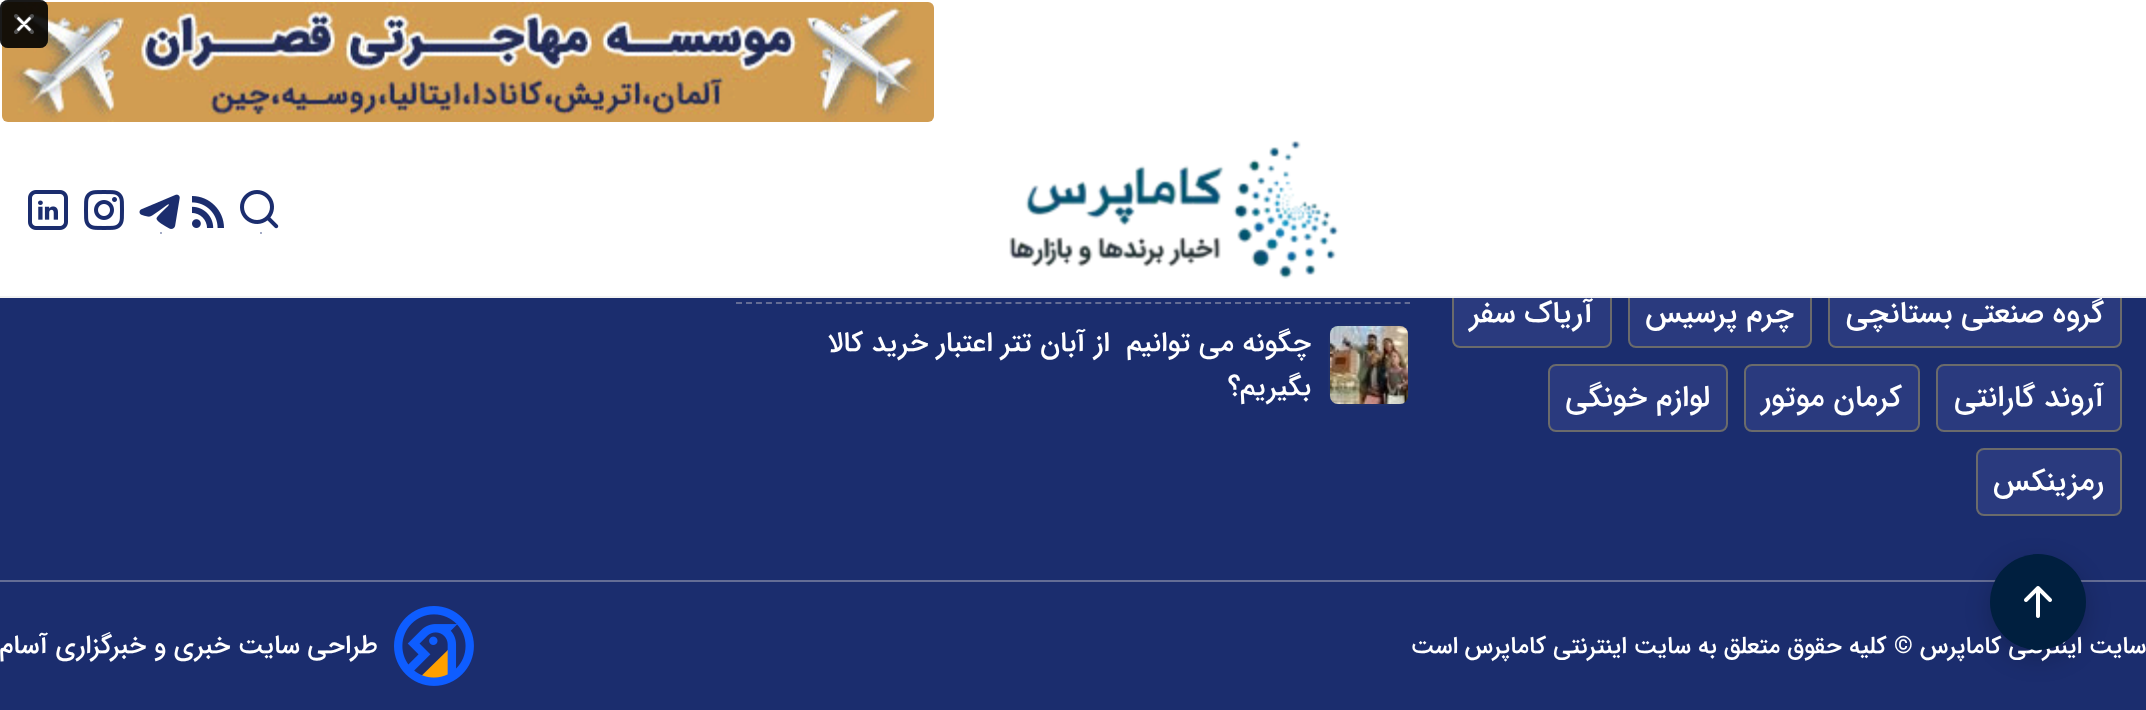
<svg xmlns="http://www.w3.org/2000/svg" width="2146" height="710">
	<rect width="100%" height="100%" fill="#1B2D6E" />
	<rect x="1829" y="281" width="292" height="66" rx="7" fill="#2A3A7E" stroke="#6B6B6B" stroke-width="2" />
	<rect x="1629" y="281" width="182" height="66" rx="7" fill="#2A3A7E" stroke="#6B6B6B" stroke-width="2" />
	<rect x="1453" y="281" width="158" height="66" rx="7" fill="#2A3A7E" stroke="#6B6B6B" stroke-width="2" />
	<rect x="0" y="0" width="2146" height="296" fill="#FFFFFF" />
	<image x="2" y="2" width="932" height="120" href="assets/img1.png" />
	<rect x="0" y="0" width="48" height="48" rx="8" fill="#000000" fill-opacity="0.68" />
	<path d="M16 16L24 24M24 24L32 32M24 24L32 16M24 24L16 32" fill="none" stroke="#FFFFFF" stroke-width="4" stroke-linecap="round" />
	<rect x="0" y="0" width="48" height="48" rx="8" fill="#000000" fill-opacity="0.68" />
	<path d="M18.5 18.5L24 24M24 24L29.5 29.5M24 24L29.5 18.5M24 24L18.5 29.5" fill="none" stroke="#FFFFFF" stroke-width="2.7" stroke-linecap="round" />
	<text x="2104" y="322" font-family="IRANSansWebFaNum" font-size="30" font-weight="500" direction="rtl" fill="#FFFFFF">گروه صنعتی بستانچی</text>
	<rect x="0" y="296" width="2146" height="2" fill="#F2F2F2" />
	<image x="1009" y="140" width="330" height="139" href="assets/img2.png" />
	<image x="240" y="190" width="39" height="44" href="assets/img3.png" />
	<image x="192" y="196" width="32" height="32" href="assets/img4.png" />
	<image x="139" y="194" width="41" height="40" href="assets/img5.png" />
	<image x="84" y="190" width="40" height="40" href="assets/img6.png" />
	<image x="28" y="190" width="40" height="40" href="assets/img7.png" />
	<g font-family="IRANSansWebFaNum" font-size="30" font-weight="500" direction="rtl" fill="#FFFFFF">
		<text x="1794" y="322">چرم پرسیس</text>
		<text x="1593" y="322">آریاک سفر</text>
	</g>
	<rect x="1937" y="365" width="184" height="66" rx="7" fill="#2A3A7E" stroke="#6B6B6B" stroke-width="2" />
	<text x="2104" y="406" font-family="IRANSansWebFaNum" font-size="30" font-weight="500" direction="rtl" fill="#FFFFFF">آروند گارانتی</text>
	<rect x="1745" y="365" width="174" height="66" rx="7" fill="#2A3A7E" stroke="#6B6B6B" stroke-width="2" />
	<text x="1902" y="406" font-family="IRANSansWebFaNum" font-size="30" font-weight="500" direction="rtl" fill="#FFFFFF">کرمان موتور</text>
	<rect x="1549" y="365" width="178" height="66" rx="7" fill="#2A3A7E" stroke="#6B6B6B" stroke-width="2" />
	<text x="1710" y="406" font-family="IRANSansWebFaNum" font-size="30" font-weight="500" direction="rtl" fill="#FFFFFF">لوازم خونگی</text>
	<rect x="1977" y="449" width="144" height="66" rx="7" fill="#2A3A7E" stroke="#6B6B6B" stroke-width="2" />
	<text x="2104" y="490" font-family="IRANSansWebFaNum" font-size="30" font-weight="500" direction="rtl" fill="#FFFFFF">رمزینکس</text>
	<path d="M736 303H1410" fill="none" stroke="#646D95" stroke-width="2" stroke-dasharray="6 3.98" />
	<rect x="1329" y="325" width="80" height="80" rx="15" fill="none" stroke="#20316C" stroke-width="2" />
	<image x="1330" y="326" width="78" height="78" href="assets/img8.png" />
	<g font-family="IRANSansWebFaNum" font-size="28" font-weight="500" direction="rtl" fill="#FFFFFF">
		<text x="1311" y="351" xml:space="preserve">چگونه می توانیم  از آبان تتر اعتبار خرید کالا</text>
		<text x="1311" y="395">بگیریم؟</text>
	</g>
	<rect x="0" y="580" width="2146" height="2" fill="#646D95" />
	<rect x="1990" y="562" width="96" height="96" rx="48" fill="#000000" fill-opacity="0.2" filter="blur(12px)" />
	<text x="2146" y="653" font-family="IRANSansWebFaNum" font-size="24" font-weight="500" direction="rtl" fill="#FFFFFF">سایت اینترنتی کاماپرس © کلیه حقوق متعلق به سایت اینترنتی کاماپرس</text>
	<circle cx="2038" cy="602" r="48" fill="#001F3F" />
	<image x="2024" y="586" width="28" height="32" href="assets/img9.png" />
	<text x="1458" y="653" font-family="IRANSansWebFaNum" font-size="24" font-weight="500" direction="rtl" fill="#FFFFFF">است</text>
	<image x="394" y="606" width="80" height="80" href="assets/img10.png" />
	<text x="378" y="653" font-family="IRANSansWebFaNum" font-size="26" font-weight="500" direction="rtl" fill="#FFFFFF">طراحی سایت خبری و خبرگزاری آسام</text>
</svg>
